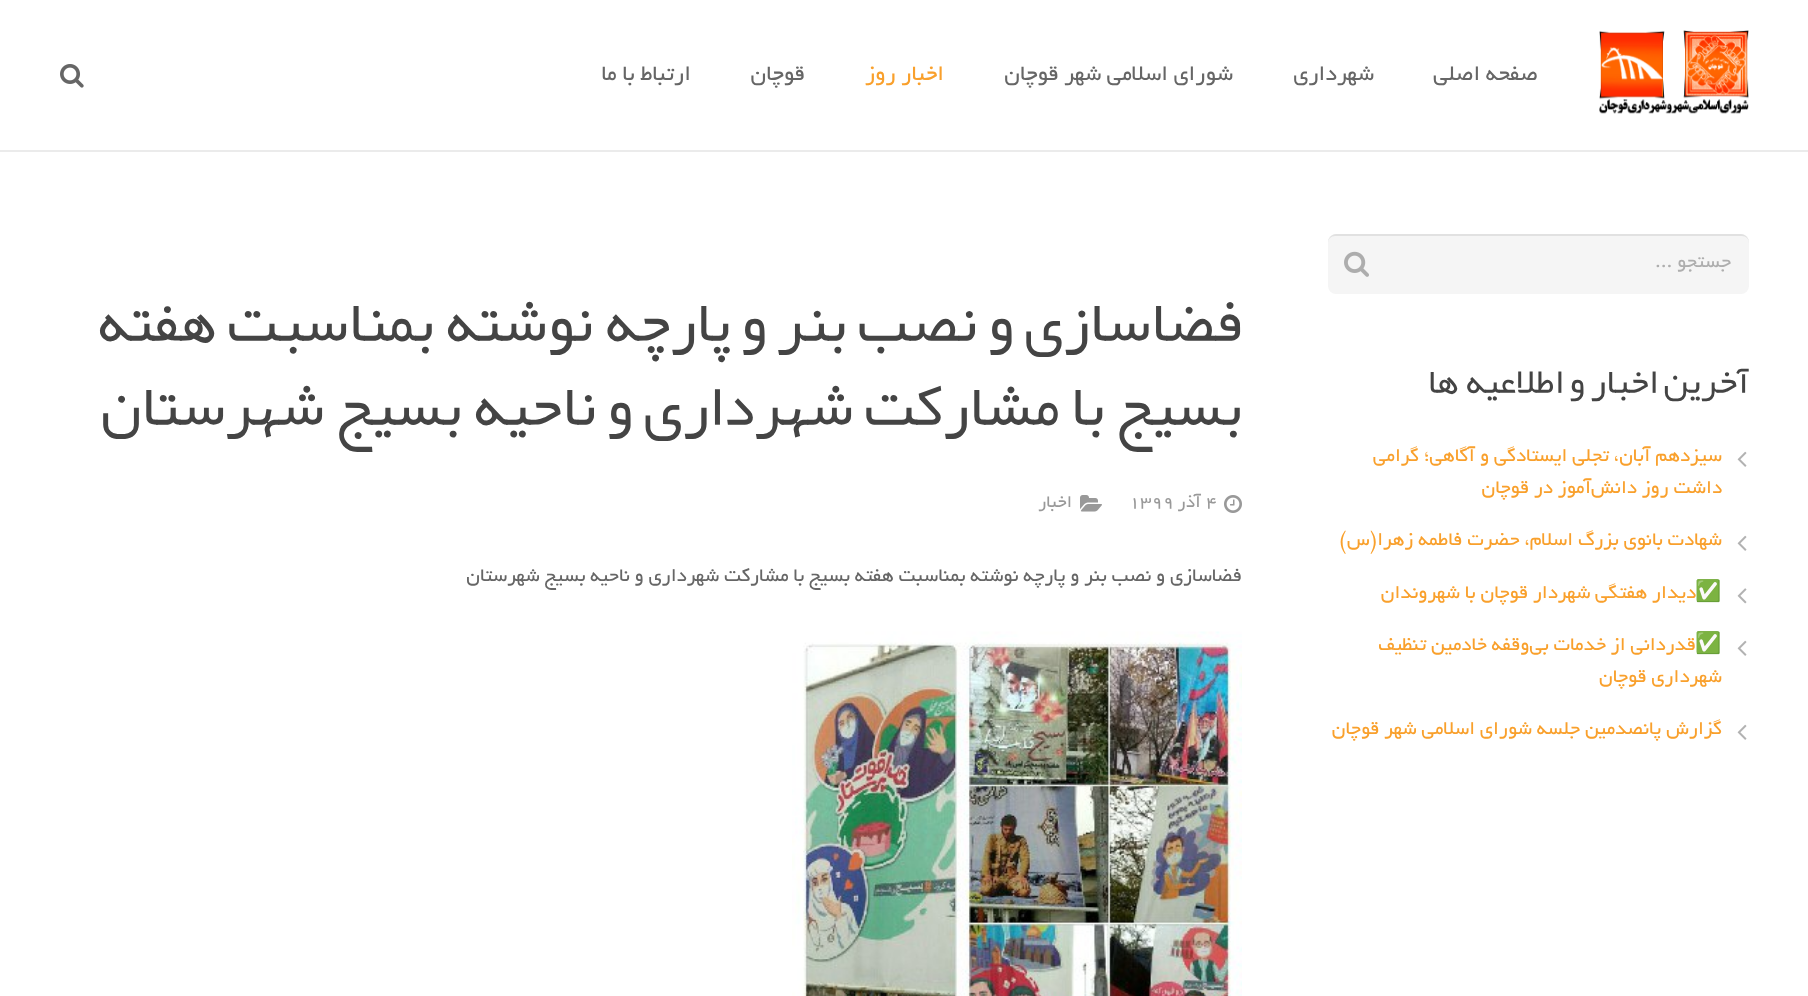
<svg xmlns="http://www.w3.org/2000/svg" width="1808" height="996">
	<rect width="100%" height="100%" fill="#FFFFFF" />
	<rect x="0" y="150" width="1808" height="2" fill="#EBEBEB" />
	<image x="1599" y="30" width="150" height="84" href="assets/img1.png" />
	<g font-family="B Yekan" font-size="24" direction="rtl" fill="#666666">
		<text x="1538" y="80">صفحه اصلی</text>
		<text x="1374" y="80">شهرداری</text>
		<text x="1233" y="80">شورای اسلامی شهر قوچان</text>
	</g>
	<text x="944" y="80" font-family="B Yekan" font-size="24" direction="rtl" fill="#F9A02C">اخبار روز</text>
	<g font-family="B Yekan" font-size="24" direction="rtl" fill="#666666">
		<text x="805" y="80">قوچان</text>
		<text x="691" y="80">ارتباط با ما</text>
	</g>
	<image x="60" y="64" width="24" height="24" href="assets/img2.png" />
	<rect x="1328" y="234" width="421" height="60" rx="8" fill="#F5F5F5" />
	<path d="M1335 236H1742C1746 236 1749 239 1749 243V242C1749 238 1745 234 1741 234H1336C1332 234 1328 238 1328 242V243C1328 239 1331 236 1335 236Z" fill="#E1E1E1" />
	<text x="1731" y="267" font-family="B Yekan" font-size="21" direction="rtl" fill="#AEAEAE">جستجو ...</text>
	<image x="1344" y="251" width="25" height="26" href="assets/img3.png" />
	<text x="1749" y="393" font-family="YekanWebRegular" font-size="36" direction="rtl" fill="#444444">آخرین اخبار و اطلاعیه ها</text>
	<image x="1737" y="451" width="10" height="16" href="assets/img4.png" />
	<g font-family="B Yekan" font-size="21" direction="rtl" fill="#F9A02C">
		<text x="1722" y="461">سیزدهم آبان، تجلی ایستادگی و آگاهی؛ گرامی</text>
		<text x="1722" y="493">داشت روز دانش‌آموز در قوچان</text>
	</g>
	<image x="1737" y="535" width="10" height="16" href="assets/img4.png" />
	<text x="1722" y="545" font-family="B Yekan" font-size="21" direction="rtl" fill="#F9A02C">شهادت بانوى بزرگ اسلام، حضرت فاطمه زهرا(س)</text>
	<image x="1737" y="588" width="10" height="16" href="assets/img5.png" />
	<text x="1696" y="598" font-family="B Yekan" font-size="21" direction="rtl" fill="#F9A02C">دیدار هفتگی شهردار قوچان با شهروندان</text>
	<text x="1722" y="598" font-family="Noto Color Emoji" font-size="21" direction="rtl" fill="#F9A02C">✅</text>
	<image x="1737" y="640" width="10" height="16" href="assets/img4.png" />
	<text x="1722" y="650" font-family="Noto Color Emoji" font-size="21" direction="rtl" fill="#F9A02C">✅</text>
	<g font-family="B Yekan" font-size="21" direction="rtl" fill="#F9A02C">
		<text x="1696" y="650">قدردانی از خدمات بی‌وقفه خادمین تنظیف</text>
		<text x="1722" y="682">شهرداری قوچان</text>
	</g>
	<image x="1737" y="724" width="10" height="16" href="assets/img4.png" />
	<text x="1722" y="734" font-family="B Yekan" font-size="21" direction="rtl" fill="#F9A02C">گزارش پانصدمین جلسه شورای اسلامی شهر قوچان</text>
	<g font-family="YekanWebRegular" font-size="60" direction="rtl" fill="#444444">
		<text x="1242" y="341">فضاسازی و نصب بنر و پارچه نوشته بمناسبت هفته</text>
		<text x="1242" y="425">بسیج با مشارکت شهرداری و ناحیه بسیج شهرستان</text>
	</g>
	<image x="1224" y="495" width="18" height="18" href="assets/img6.png" />
	<text x="1206" y="507" font-family="B Yekan" font-size="19" fill="#999999">4</text>
	<text x="1201" y="507" font-family="B Yekan" font-size="19" direction="rtl" fill="#999999">آذر</text>
	<text x="1129" y="507" font-family="B Yekan" font-size="19" fill="#999999">1399</text>
	<image x="1080" y="495" width="22" height="17" href="assets/img7.png" />
	<text x="1072" y="507" font-family="B Yekan" font-size="19" direction="rtl" fill="#999999">اخبار</text>
	<text x="1242" y="581" font-family="B Yekan" font-size="21" direction="rtl" fill="#666666">فضاسازی و نصب بنر و پارچه نوشته بمناسبت هفته بسیج با مشارکت شهرداری و ناحیه بسیج شهرستان</text>
	<image x="792" y="631" width="450" height="365" href="assets/img8.png" />
</svg>
